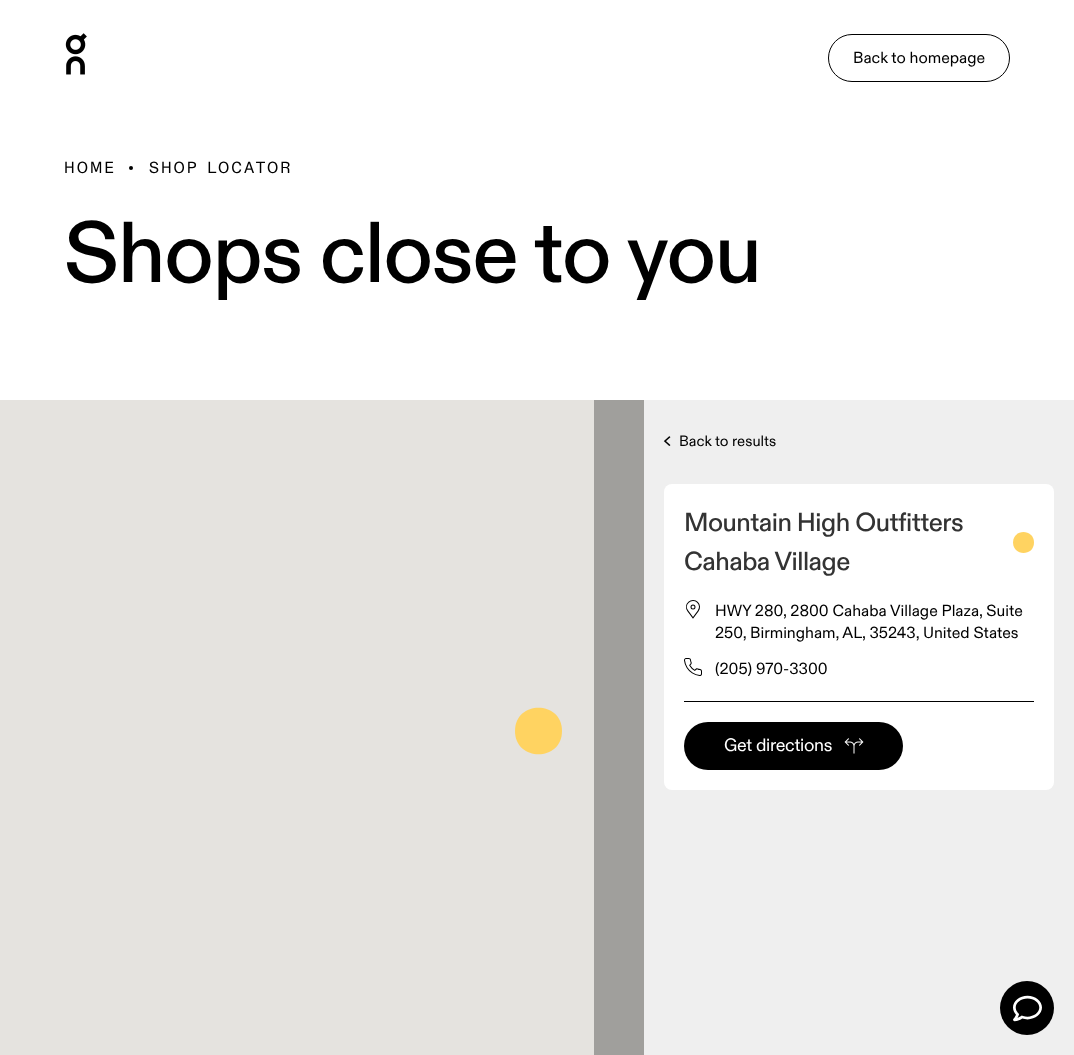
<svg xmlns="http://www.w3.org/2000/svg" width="1074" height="1055">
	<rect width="100%" height="100%" fill="#FFFFFF" />
	<image x="65" y="33" width="22" height="42" href="assets/img1.png" />
	<rect x="828.5" y="34.5" width="181" height="47" rx="23.5" fill="none" stroke="#000000" />
	<text x="853" y="63" font-family="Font" font-size="16" fill="#000000">Back to homepage</text>
	<text x="64" y="173" font-family="'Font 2'" font-size="16" letter-spacing="2" fill="#000000">HOME</text>
	<circle cx="131" cy="168" r="2" fill="#000000" />
	<text x="149" y="173" font-family="'Font 2'" font-size="16" letter-spacing="2" fill="#000000">SHOP LOCATOR</text>
	<text x="64" y="282" font-family="Font" font-size="86" font-weight="500" letter-spacing="-1.6" fill="#000000">Shops close to you</text>
	<rect x="0" y="400" width="594" height="655" fill="#E5E3DF" />
	<path d="M562 731C562 762 515 762 515 731C515 700 562 700 562 731Z" fill="#FFD361" />
	<rect x="594" y="400" width="50" height="655" fill="#A09F9C" />
	<rect x="644" y="400" width="430" height="655" fill="#EFEFEF" />
	<image x="663" y="436" width="8" height="10" href="assets/img2.png" />
	<text x="679" y="446" font-family="Font" font-size="15" fill="#000000">Back to results</text>
	<rect x="664" y="484" width="390" height="306" rx="8" fill="#FFFFFF" />
	<g font-family="Font" font-size="26" font-weight="500" letter-spacing="-0.5" fill="#333333">
		<text x="684" y="531">Mountain High Outfitters</text>
		<text x="684" y="570">Cahaba Village</text>
	</g>
	<path d="M1034 542.5C1034 556.5 1013 556.5 1013 542.5C1013 528.5 1034 528.5 1034 542.5Z" fill="#FFD361" />
	<image x="686" y="600" width="14" height="19" href="assets/img3.png" />
	<g font-family="Font" font-size="16" fill="#000000">
		<text x="715" y="616">HWY 280, 2800 Cahaba Village Plaza, Suite</text>
		<text x="715" y="638">250, Birmingham, AL, 35243, United States</text>
	</g>
	<image x="684" y="658" width="18" height="18" href="assets/img4.png" />
	<text x="715" y="674" font-family="Font" font-size="16" fill="#000000">(205) 970-3300</text>
	<rect x="684" y="701" width="350" height="1" fill="#000000" />
	<rect x="684" y="722" width="219" height="48" rx="24" fill="#000000" />
	<text x="724" y="751" font-family="Font" font-size="18" letter-spacing="-0.3" fill="#FFFFFF">Get directions</text>
	<image x="844" y="738" width="20" height="16" href="assets/img5.png" />
	<image x="1000" y="981" width="54" height="54" href="assets/img6.png" />
</svg>
